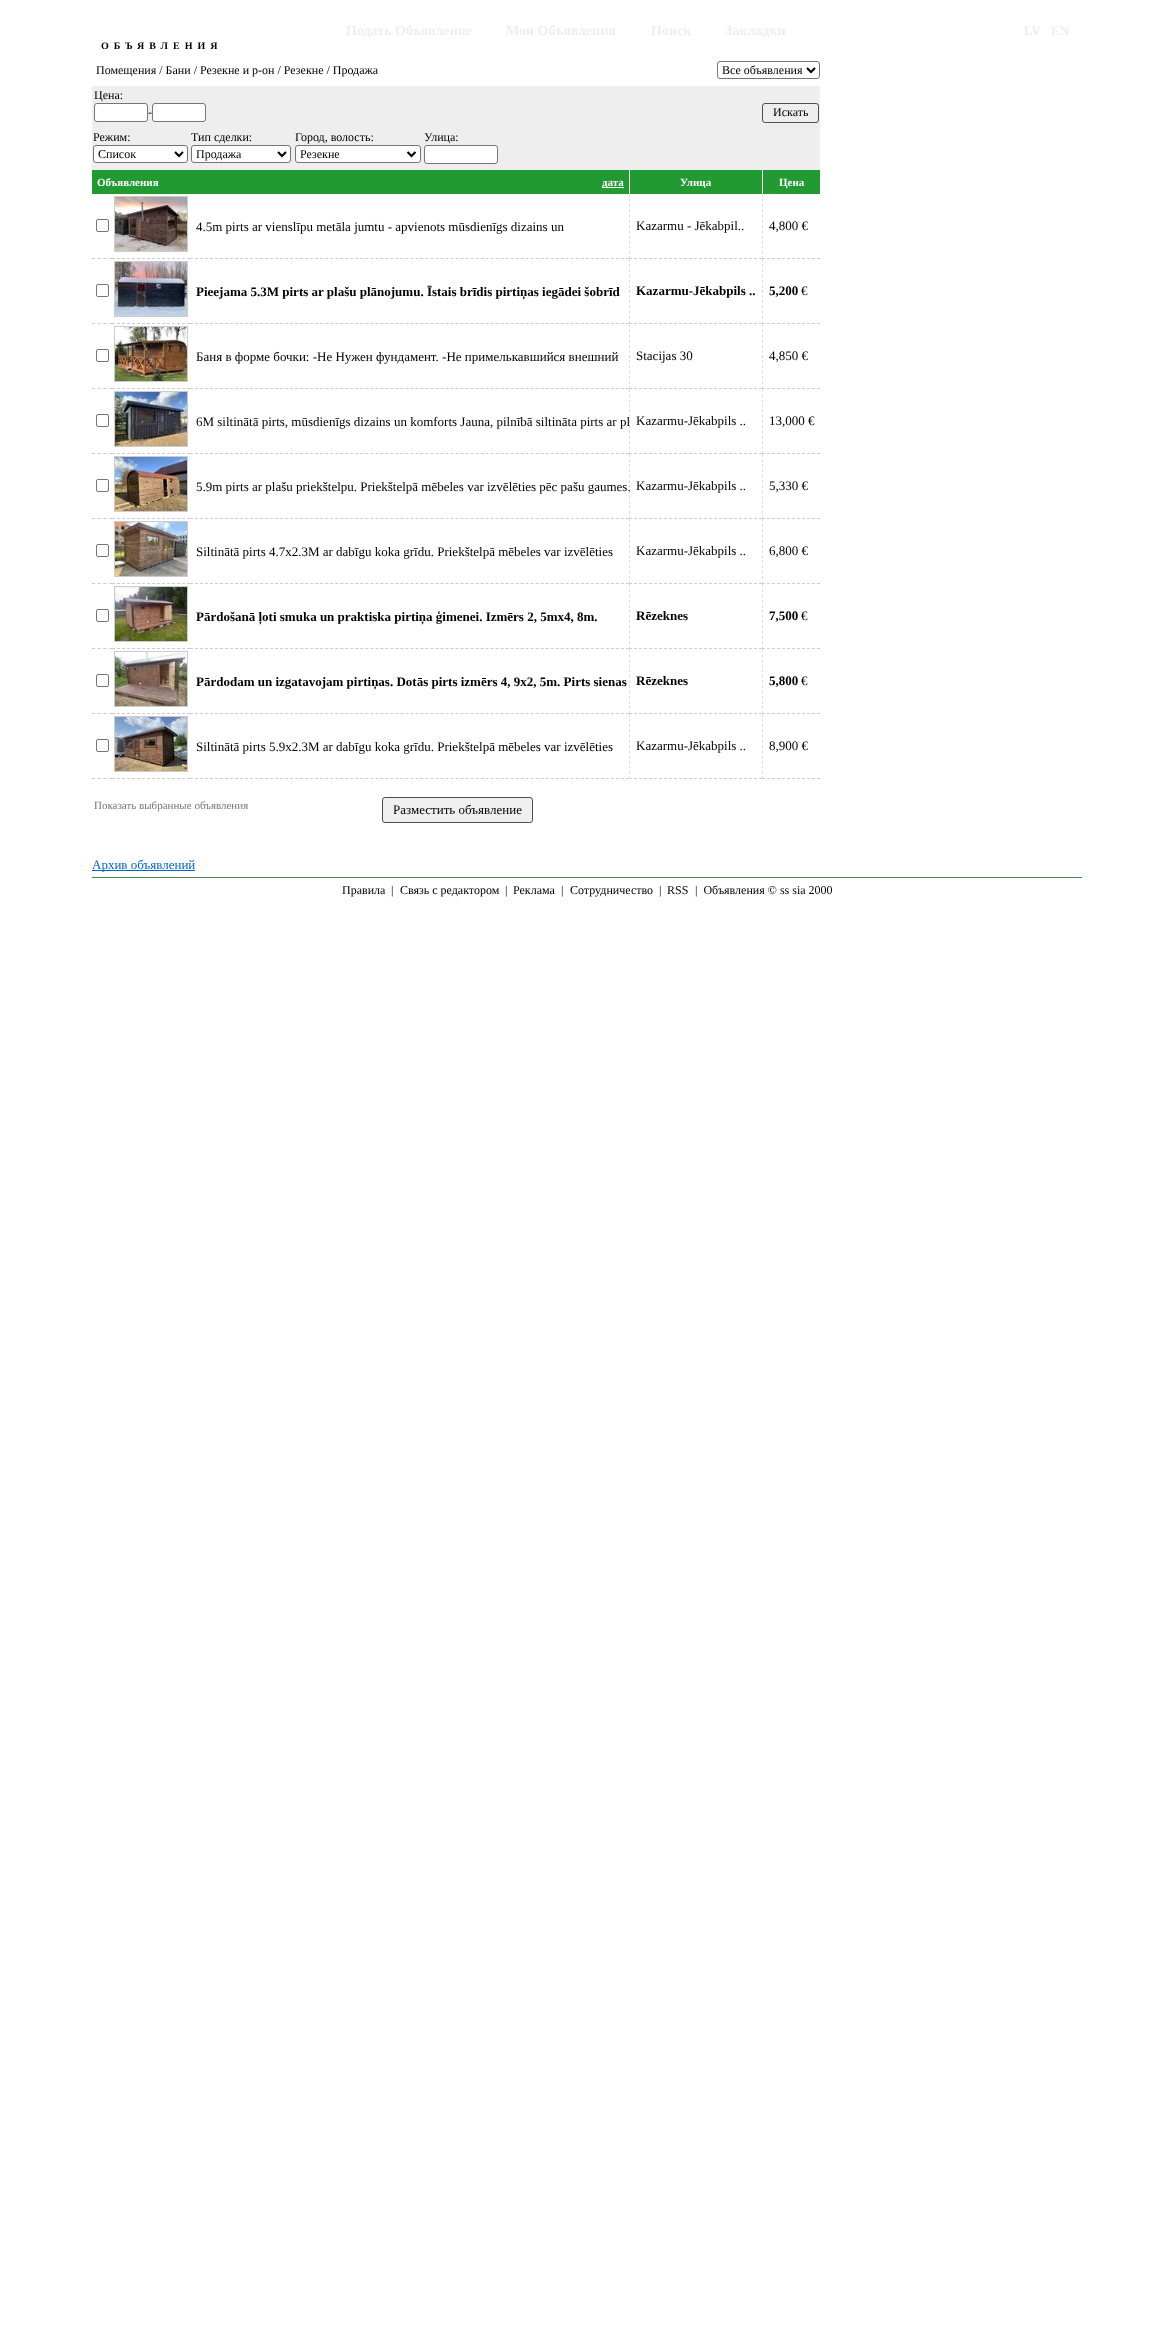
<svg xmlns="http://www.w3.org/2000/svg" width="1174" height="2330">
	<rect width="100%" height="100%" fill="#FFFFFF" />
	<g font-family="Liberation Serif" font-size="14" font-weight="700" fill="#EEEEEE">
		<text x="346" y="35">Подать Объявление</text>
		<text x="506" y="35">Мои Объявления</text>
		<text x="651" y="35">Поиск</text>
		<text x="725" y="35">Закладки</text>
	</g>
	<g font-family="Liberation Serif" font-size="13" font-weight="700" fill="#EEEEEE">
		<text x="1024" y="35">LV</text>
		<text x="1051" y="35">EN</text>
	</g>
	<text x="101" y="49" font-family="Liberation Serif" font-size="10" font-weight="700" letter-spacing="5" fill="#000000">ОБЪЯВЛЕНИЯ</text>
	<text x="96" y="74" font-family="Liberation Serif" font-size="12" fill="#000000">Помещения / Бани / Резекне и р-он / Резекне / Продажа</text>
	<rect x="717.5" y="61.5" width="102" height="17" rx="2.5" fill="none" stroke="#767676" />
	<path d="M807 68L811 72L815 68" fill="none" stroke="#000000" stroke-width="2" />
	<text x="722" y="74" font-family="Liberation Serif" font-size="12" fill="#000000">Все объявления</text>
	<rect x="92" y="86" width="728" height="84" fill="#EEEEEE" />
	<text x="94" y="99" font-family="Liberation Serif" font-size="12" fill="#000000">Цена:</text>
	<rect x="94.5" y="103.5" width="53" height="18" rx="2.5" fill="#FFFFFF" stroke="#767676" />
	<text x="148" y="116" font-family="Liberation Serif" font-size="12" fill="#000000">-</text>
	<rect x="152.5" y="103.5" width="53" height="18" rx="2.5" fill="#FFFFFF" stroke="#767676" />
	<rect x="762.5" y="103.5" width="56" height="19" rx="2.5" fill="none" stroke="#4F4F4F" />
	<g font-family="Liberation Serif" font-size="12" fill="#000000">
		<text x="773" y="116">Искать</text>
		<text x="93" y="141">Режим:</text>
	</g>
	<rect x="93.5" y="145.5" width="94" height="17" rx="2.5" fill="#FFFFFF" stroke="#767676" />
	<path d="M175 152L179 156L183 152" fill="none" stroke="#000000" stroke-width="2" />
	<g font-family="Liberation Serif" font-size="12" fill="#000000">
		<text x="98" y="158">Список</text>
		<text x="191" y="141">Тип сделки:</text>
	</g>
	<rect x="191.5" y="145.5" width="99" height="17" rx="2.5" fill="#FFFFFF" stroke="#767676" />
	<path d="M278 152L282 156L286 152" fill="none" stroke="#000000" stroke-width="2" />
	<g font-family="Liberation Serif" font-size="12" fill="#000000">
		<text x="196" y="158">Продажа</text>
		<text x="295" y="141">Город, волость:</text>
	</g>
	<rect x="295.5" y="145.5" width="125" height="17" rx="2.5" fill="#FFFFFF" stroke="#767676" />
	<path d="M407.5 152L411.5 156L415.5 152" fill="none" stroke="#000000" stroke-width="2" />
	<g font-family="Liberation Serif" font-size="12" fill="#000000">
		<text x="300" y="158">Резекне</text>
		<text x="424" y="141">Улица:</text>
	</g>
	<rect x="424.5" y="145.5" width="73" height="18" rx="2.5" fill="#FFFFFF" stroke="#767676" />
	<rect x="92" y="170" width="537" height="24" fill="#219A32" />
	<text x="97" y="186" font-family="Liberation Serif" font-size="11" font-weight="700" fill="#FFFFFF">Объявления</text>
	<rect x="602" y="187" width="22" height="1" fill="#FFFFFF" />
	<text x="602" y="186" font-family="Liberation Serif" font-size="11" font-weight="700" fill="#FFFFFF">дата</text>
	<rect x="630" y="170" width="132" height="24" fill="#219A32" />
	<text x="680" y="186" font-family="Liberation Serif" font-size="11" font-weight="700" fill="#FFFFFF">Улица</text>
	<rect x="763" y="170" width="57" height="24" fill="#219A32" />
	<text x="779" y="186" font-family="Liberation Serif" font-size="11" font-weight="700" fill="#FFFFFF">Цена</text>
	<path d="M92 258.5H112" fill="none" stroke="#CCCCCC" stroke-dasharray="3 2.67" />
	<rect x="96.5" y="219.5" width="12" height="12" rx="1.5" fill="none" stroke="#767676" />
	<path d="M112 258.5H190" fill="none" stroke="#CCCCCC" stroke-dasharray="3 2" />
	<rect x="114.5" y="196.5" width="73" height="55" fill="none" stroke="#CCCCCC" />
	<image x="115" y="197" width="72" height="54" href="assets/img1.png" />
	<path d="M190 258.5H629" fill="none" stroke="#CCCCCC" stroke-dasharray="3 2.01" />
	<text x="196" y="231" font-family="Liberation Serif" font-size="13" fill="#000000">4.5m pirts ar vienslīpu metāla jumtu - apvienots mūsdienīgs dizains un</text>
	<path d="M629 258.5H762" fill="none" stroke="#CCCCCC" stroke-dasharray="3 2" />
	<path d="M629.5 194V259" fill="none" stroke="#DDDDDD" stroke-dasharray="3 2.17" />
	<text x="636" y="230" font-family="Liberation Serif" font-size="13" fill="#000000">Kazarmu - Jēkabpil..</text>
	<path d="M762 258.5H820" fill="none" stroke="#CCCCCC" stroke-dasharray="3 2" />
	<path d="M762.5 194V259" fill="none" stroke="#DDDDDD" stroke-dasharray="3 2.17" />
	<text x="769" y="230" font-family="Liberation Serif" font-size="13" fill="#000000">4,800 €</text>
	<path d="M92 323.5H112" fill="none" stroke="#CCCCCC" stroke-dasharray="3 2.67" />
	<rect x="96.5" y="284.5" width="12" height="12" rx="1.5" fill="none" stroke="#767676" />
	<path d="M112 323.5H190" fill="none" stroke="#CCCCCC" stroke-dasharray="3 2" />
	<rect x="114.5" y="261.5" width="73" height="55" fill="none" stroke="#CCCCCC" />
	<image x="115" y="262" width="72" height="54" href="assets/img2.png" />
	<path d="M190 323.5H629" fill="none" stroke="#CCCCCC" stroke-dasharray="3 2.01" />
	<text x="196" y="296" font-family="Liberation Serif" font-size="13" font-weight="700" fill="#000000">Pieejama 5.3M pirts ar plašu plānojumu. Īstais brīdis pirtiņas iegādei šobrīd</text>
	<path d="M629 323.5H762" fill="none" stroke="#CCCCCC" stroke-dasharray="3 2" />
	<path d="M629.5 259V324" fill="none" stroke="#DDDDDD" stroke-dasharray="3 2.17" />
	<text x="636" y="295" font-family="Liberation Serif" font-size="13" font-weight="700" fill="#000000">Kazarmu-Jēkabpils ..</text>
	<path d="M762 323.5H820" fill="none" stroke="#CCCCCC" stroke-dasharray="3 2" />
	<path d="M762.5 259V324" fill="none" stroke="#DDDDDD" stroke-dasharray="3 2.17" />
	<text x="769" y="295" font-family="Liberation Serif" font-size="13" font-weight="700" fill="#000000">5,200</text>
	<text x="801" y="295" font-family="Liberation Serif" font-size="13" fill="#000000">€</text>
	<path d="M92 388.5H112" fill="none" stroke="#CCCCCC" stroke-dasharray="3 2.67" />
	<rect x="96.5" y="349.5" width="12" height="12" rx="1.5" fill="none" stroke="#767676" />
	<path d="M112 388.5H190" fill="none" stroke="#CCCCCC" stroke-dasharray="3 2" />
	<rect x="114.5" y="326.5" width="73" height="55" fill="none" stroke="#CCCCCC" />
	<image x="115" y="327" width="72" height="54" href="assets/img3.png" />
	<path d="M190 388.5H629" fill="none" stroke="#CCCCCC" stroke-dasharray="3 2.01" />
	<text x="196" y="361" font-family="Liberation Serif" font-size="13" fill="#000000">Баня в форме бочки: -Не Нужен фундамент. -Не примелькавшийся внешний</text>
	<path d="M629 388.5H762" fill="none" stroke="#CCCCCC" stroke-dasharray="3 2" />
	<path d="M629.5 324V389" fill="none" stroke="#DDDDDD" stroke-dasharray="3 2.17" />
	<text x="636" y="360" font-family="Liberation Serif" font-size="13" fill="#000000">Stacijas 30</text>
	<path d="M762 388.5H820" fill="none" stroke="#CCCCCC" stroke-dasharray="3 2" />
	<path d="M762.5 324V389" fill="none" stroke="#DDDDDD" stroke-dasharray="3 2.17" />
	<text x="769" y="360" font-family="Liberation Serif" font-size="13" fill="#000000">4,850 €</text>
	<path d="M92 453.5H112" fill="none" stroke="#CCCCCC" stroke-dasharray="3 2.67" />
	<rect x="96.5" y="414.5" width="12" height="12" rx="1.5" fill="none" stroke="#767676" />
	<path d="M112 453.5H190" fill="none" stroke="#CCCCCC" stroke-dasharray="3 2" />
	<rect x="114.5" y="391.5" width="73" height="55" fill="none" stroke="#CCCCCC" />
	<image x="115" y="392" width="72" height="54" href="assets/img4.png" />
	<path d="M190 453.5H629" fill="none" stroke="#CCCCCC" stroke-dasharray="3 2.01" />
	<path d="M629 453.5H762" fill="none" stroke="#CCCCCC" stroke-dasharray="3 2" />
	<path d="M629.5 389V454" fill="none" stroke="#DDDDDD" stroke-dasharray="3 2.17" />
	<g font-family="Liberation Serif" font-size="13" fill="#000000">
		<text x="196" y="426">6M siltinātā pirts, mūsdienīgs dizains un komforts Jauna, pilnībā siltināta pirts ar pl</text>
		<text x="636" y="425">Kazarmu-Jēkabpils ..</text>
	</g>
	<path d="M762 453.5H820" fill="none" stroke="#CCCCCC" stroke-dasharray="3 2" />
	<path d="M762.5 389V454" fill="none" stroke="#DDDDDD" stroke-dasharray="3 2.17" />
	<text x="769" y="425" font-family="Liberation Serif" font-size="13" fill="#000000">13,000 €</text>
	<path d="M92 518.5H112" fill="none" stroke="#CCCCCC" stroke-dasharray="3 2.67" />
	<rect x="96.5" y="479.5" width="12" height="12" rx="1.5" fill="none" stroke="#767676" />
	<path d="M112 518.5H190" fill="none" stroke="#CCCCCC" stroke-dasharray="3 2" />
	<rect x="114.5" y="456.5" width="73" height="55" fill="none" stroke="#CCCCCC" />
	<image x="115" y="457" width="72" height="54" href="assets/img5.png" />
	<path d="M190 518.5H629" fill="none" stroke="#CCCCCC" stroke-dasharray="3 2.01" />
	<path d="M629 518.5H762" fill="none" stroke="#CCCCCC" stroke-dasharray="3 2" />
	<path d="M629.5 454V519" fill="none" stroke="#DDDDDD" stroke-dasharray="3 2.17" />
	<g font-family="Liberation Serif" font-size="13" fill="#000000">
		<text x="196" y="491">5.9m pirts ar plašu priekštelpu. Priekštelpā mēbeles var izvēlēties pēc pašu gaumes.</text>
		<text x="636" y="490">Kazarmu-Jēkabpils ..</text>
	</g>
	<path d="M762 518.5H820" fill="none" stroke="#CCCCCC" stroke-dasharray="3 2" />
	<path d="M762.5 454V519" fill="none" stroke="#DDDDDD" stroke-dasharray="3 2.17" />
	<text x="769" y="490" font-family="Liberation Serif" font-size="13" fill="#000000">5,330 €</text>
	<path d="M92 583.5H112" fill="none" stroke="#CCCCCC" stroke-dasharray="3 2.67" />
	<rect x="96.5" y="544.5" width="12" height="12" rx="1.5" fill="none" stroke="#767676" />
	<path d="M112 583.5H190" fill="none" stroke="#CCCCCC" stroke-dasharray="3 2" />
	<rect x="114.5" y="521.5" width="73" height="55" fill="none" stroke="#CCCCCC" />
	<image x="115" y="522" width="72" height="54" href="assets/img6.png" />
	<path d="M190 583.5H629" fill="none" stroke="#CCCCCC" stroke-dasharray="3 2.01" />
	<text x="196" y="556" font-family="Liberation Serif" font-size="13" fill="#000000">Siltinātā pirts 4.7x2.3M ar dabīgu koka grīdu. Priekštelpā mēbeles var izvēlēties</text>
	<path d="M629 583.5H762" fill="none" stroke="#CCCCCC" stroke-dasharray="3 2" />
	<path d="M629.5 519V584" fill="none" stroke="#DDDDDD" stroke-dasharray="3 2.17" />
	<text x="636" y="555" font-family="Liberation Serif" font-size="13" fill="#000000">Kazarmu-Jēkabpils ..</text>
	<path d="M762 583.5H820" fill="none" stroke="#CCCCCC" stroke-dasharray="3 2" />
	<path d="M762.5 519V584" fill="none" stroke="#DDDDDD" stroke-dasharray="3 2.17" />
	<text x="769" y="555" font-family="Liberation Serif" font-size="13" fill="#000000">6,800 €</text>
	<path d="M92 648.5H112" fill="none" stroke="#CCCCCC" stroke-dasharray="3 2.67" />
	<rect x="96.5" y="609.5" width="12" height="12" rx="1.5" fill="none" stroke="#767676" />
	<path d="M112 648.5H190" fill="none" stroke="#CCCCCC" stroke-dasharray="3 2" />
	<rect x="114.5" y="586.5" width="73" height="55" fill="none" stroke="#CCCCCC" />
	<image x="115" y="587" width="72" height="54" href="assets/img7.png" />
	<path d="M190 648.5H629" fill="none" stroke="#CCCCCC" stroke-dasharray="3 2.01" />
	<text x="196" y="621" font-family="Liberation Serif" font-size="13" font-weight="700" fill="#000000">Pārdošanā ļoti smuka un praktiska pirtiņa ģimenei. Izmērs 2, 5mx4, 8m.</text>
	<path d="M629 648.5H762" fill="none" stroke="#CCCCCC" stroke-dasharray="3 2" />
	<path d="M629.5 584V649" fill="none" stroke="#DDDDDD" stroke-dasharray="3 2.17" />
	<text x="636" y="620" font-family="Liberation Serif" font-size="13" font-weight="700" fill="#000000">Rēzeknes</text>
	<path d="M762 648.5H820" fill="none" stroke="#CCCCCC" stroke-dasharray="3 2" />
	<path d="M762.5 584V649" fill="none" stroke="#DDDDDD" stroke-dasharray="3 2.17" />
	<text x="769" y="620" font-family="Liberation Serif" font-size="13" font-weight="700" fill="#000000">7,500</text>
	<text x="801" y="620" font-family="Liberation Serif" font-size="13" fill="#000000">€</text>
	<path d="M92 713.5H112" fill="none" stroke="#CCCCCC" stroke-dasharray="3 2.67" />
	<rect x="96.5" y="674.5" width="12" height="12" rx="1.5" fill="none" stroke="#767676" />
	<path d="M112 713.5H190" fill="none" stroke="#CCCCCC" stroke-dasharray="3 2" />
	<rect x="114.5" y="651.5" width="73" height="55" fill="none" stroke="#CCCCCC" />
	<image x="115" y="652" width="72" height="54" href="assets/img8.png" />
	<path d="M190 713.5H629" fill="none" stroke="#CCCCCC" stroke-dasharray="3 2.01" />
	<text x="196" y="686" font-family="Liberation Serif" font-size="13" font-weight="700" fill="#000000">Pārdodam un izgatavojam pirtiņas. Dotās pirts izmērs 4, 9x2, 5m. Pirts sienas</text>
	<path d="M629 713.5H762" fill="none" stroke="#CCCCCC" stroke-dasharray="3 2" />
	<path d="M629.5 649V714" fill="none" stroke="#DDDDDD" stroke-dasharray="3 2.17" />
	<text x="636" y="685" font-family="Liberation Serif" font-size="13" font-weight="700" fill="#000000">Rēzeknes</text>
	<path d="M762 713.5H820" fill="none" stroke="#CCCCCC" stroke-dasharray="3 2" />
	<path d="M762.5 649V714" fill="none" stroke="#DDDDDD" stroke-dasharray="3 2.17" />
	<text x="769" y="685" font-family="Liberation Serif" font-size="13" font-weight="700" fill="#000000">5,800</text>
	<text x="801" y="685" font-family="Liberation Serif" font-size="13" fill="#000000">€</text>
	<path d="M92 778.5H112" fill="none" stroke="#CCCCCC" stroke-dasharray="3 2.67" />
	<rect x="96.5" y="739.5" width="12" height="12" rx="1.5" fill="none" stroke="#767676" />
	<path d="M112 778.5H190" fill="none" stroke="#CCCCCC" stroke-dasharray="3 2" />
	<rect x="114.5" y="716.5" width="73" height="55" fill="none" stroke="#CCCCCC" />
	<image x="115" y="717" width="72" height="54" href="assets/img9.png" />
	<path d="M190 778.5H629" fill="none" stroke="#CCCCCC" stroke-dasharray="3 2.01" />
	<text x="196" y="751" font-family="Liberation Serif" font-size="13" fill="#000000">Siltinātā pirts 5.9x2.3M ar dabīgu koka grīdu. Priekštelpā mēbeles var izvēlēties</text>
	<path d="M629 778.5H762" fill="none" stroke="#CCCCCC" stroke-dasharray="3 2" />
	<path d="M629.5 714V779" fill="none" stroke="#DDDDDD" stroke-dasharray="3 2.17" />
	<text x="636" y="750" font-family="Liberation Serif" font-size="13" fill="#000000">Kazarmu-Jēkabpils ..</text>
	<path d="M762 778.5H820" fill="none" stroke="#CCCCCC" stroke-dasharray="3 2" />
	<path d="M762.5 714V779" fill="none" stroke="#DDDDDD" stroke-dasharray="3 2.17" />
	<text x="769" y="750" font-family="Liberation Serif" font-size="13" fill="#000000">8,900 €</text>
	<text x="94" y="809" font-family="Liberation Serif" font-size="11" fill="#777777">Показать выбранные объявления</text>
	<rect x="382.5" y="797.5" width="150" height="25" rx="2.5" fill="#EFEFEF" stroke="#4F4F4F" />
	<text x="393" y="814" font-family="Liberation Serif" font-size="13" fill="#000000">Разместить объявление</text>
	<rect x="92" y="870" width="103" height="1" fill="#0066CC" />
	<text x="92" y="869" font-family="Liberation Serif" font-size="13" fill="#0066CC">Архив объявлений</text>
	<rect x="92" y="877" width="990" height="1" fill="#418C4E" />
	<g font-family="Liberation Serif" font-size="12" fill="#000000">
		<text x="342" y="894">Правила</text>
		<text x="391" y="894">|</text>
		<text x="400" y="894">Связь с редактором</text>
		<text x="505" y="894">|</text>
		<text x="513" y="894">Реклама</text>
		<text x="561" y="894">|</text>
		<text x="570" y="894">Сотрудничество</text>
		<text x="659" y="894">|</text>
		<text x="667" y="894">RSS</text>
		<text x="695" y="894" xml:space="preserve">|  Объявления © ss sia 2000</text>
	</g>
</svg>
